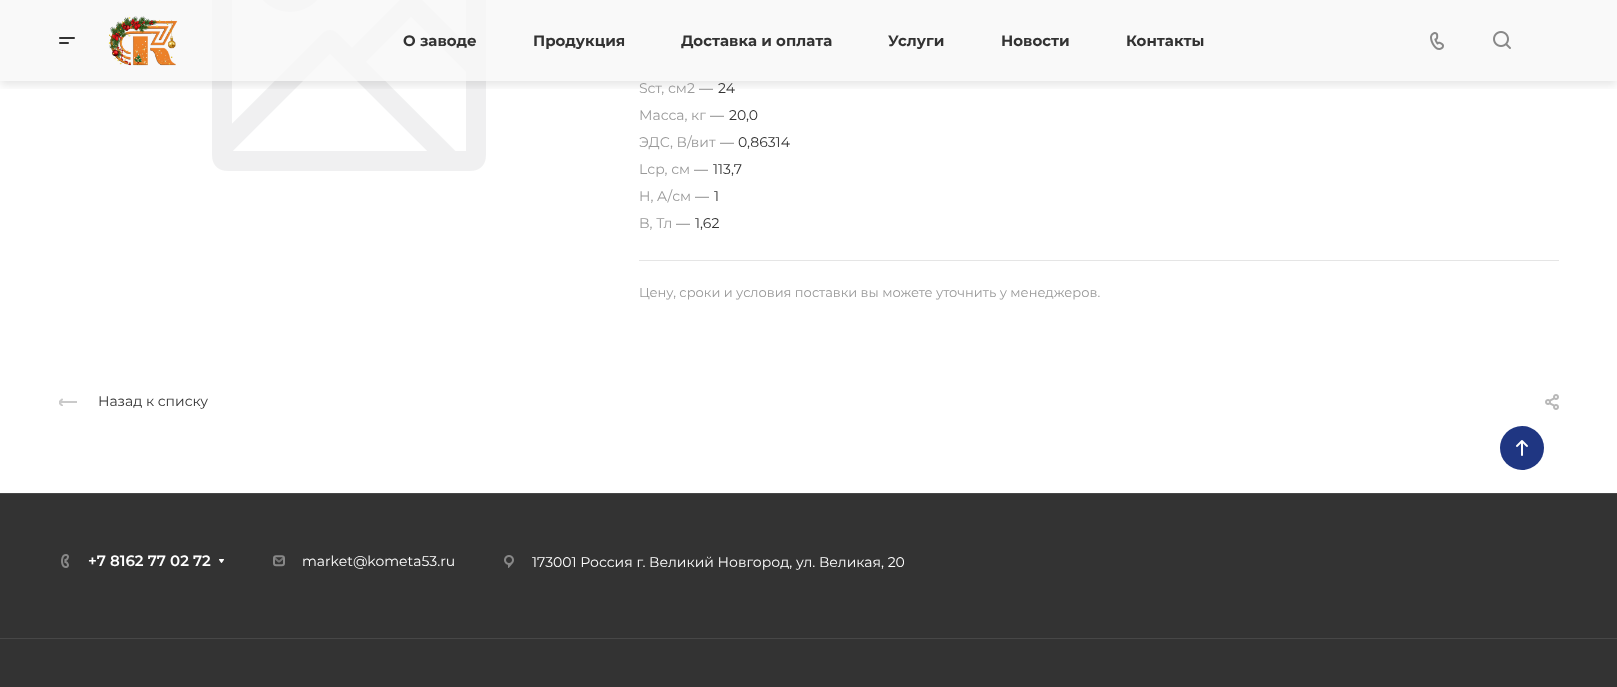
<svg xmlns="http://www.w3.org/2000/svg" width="1617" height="687">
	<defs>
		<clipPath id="clip1"><rect x="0" y="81" width="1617" height="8" /></clipPath>
		<clipPath id="clip2"><rect x="59" y="398" width="5" height="8" /></clipPath>
	</defs>
	<rect width="100%" height="100%" fill="#FFFFFF" />
	<image x="212" y="0" width="274" height="171" href="assets/img5.png" />
	<rect x="0" y="0" width="1617" height="81" fill="#F7F7F7" fill-opacity="0.8" />
	<g clip-path="url(#clip1)">
		<rect x="0" y="4" width="1617" height="81" fill="#000000" fill-opacity="0.1" filter="blur(5px)" />
	</g>
	<image x="59" y="37" width="16" height="7" href="assets/img1.png" />
	<image x="108" y="16" width="70" height="50" href="assets/img2.png" />
	<g font-family="Montserrat" font-size="15" font-weight="700" fill="#333333">
		<text x="403" y="46">О заводе</text>
		<text x="533" y="46">Продукция</text>
		<text x="681" y="46">Доставка и оплата</text>
		<text x="888" y="46">Услуги</text>
		<text x="1001" y="46">Новости</text>
		<text x="1126" y="46">Контакты</text>
	</g>
	<image x="1430" y="32" width="14" height="18" href="assets/img3.png" />
	<image x="1493" y="31" width="18" height="18" href="assets/img4.png" />
	<text x="639" y="93" font-family="Montserrat" font-size="14" fill="#999999">Sст, см2</text>
	<text x="699" y="93" font-family="Montserrat" font-size="14" fill="#666666">—</text>
	<text x="718" y="93" font-family="Montserrat" font-size="14" fill="#333333">24</text>
	<text x="639" y="120" font-family="Montserrat" font-size="14" fill="#999999">Масса, кг</text>
	<text x="710" y="120" font-family="Montserrat" font-size="14" fill="#666666">—</text>
	<text x="729" y="120" font-family="Montserrat" font-size="14" fill="#333333">20,0</text>
	<text x="639" y="147" font-family="Montserrat" font-size="14" fill="#999999">ЭДС, В/вит</text>
	<text x="720" y="147" font-family="Montserrat" font-size="14" fill="#666666">—</text>
	<text x="738" y="147" font-family="Montserrat" font-size="14" fill="#333333">0,86314</text>
	<text x="639" y="174" font-family="Montserrat" font-size="14" fill="#999999">Lср, см</text>
	<text x="694" y="174" font-family="Montserrat" font-size="14" fill="#666666">—</text>
	<text x="713" y="174" font-family="Montserrat" font-size="14" fill="#333333">113,7</text>
	<text x="639" y="201" font-family="Montserrat" font-size="14" fill="#999999">H, A/см</text>
	<text x="695" y="201" font-family="Montserrat" font-size="14" fill="#666666">—</text>
	<text x="714" y="201" font-family="Montserrat" font-size="14" fill="#333333">1</text>
	<text x="639" y="228" font-family="Montserrat" font-size="14" fill="#999999">B, Тл</text>
	<text x="676" y="228" font-family="Montserrat" font-size="14" fill="#666666">—</text>
	<text x="695" y="228" font-family="Montserrat" font-size="14" fill="#333333">1,62</text>
	<rect x="639" y="260" width="920" height="1" fill="#E5E5E5" />
	<text x="639" y="297" font-family="Montserrat" font-size="13" fill="#999999">Цену, сроки и условия поставки вы можете уточнить у менеджеров.</text>
	<g clip-path="url(#clip2)">
		<path d="M62 405.5L59 402.5L62 399.5" fill="none" stroke="#CACACA" stroke-width="2" stroke-linecap="round" stroke-linejoin="round" />
	</g>
	<rect x="59" y="401" width="18" height="2" fill="#CACACA" />
	<text x="98" y="406" font-family="Montserrat" font-size="14" fill="#333333">Назад к списку</text>
	<image x="1545" y="394" width="14" height="16" href="assets/img6.png" />
	<circle cx="1522" cy="448" r="22" fill="#1F3682" />
	<image x="1516" y="440" width="12" height="16" href="assets/img7.png" />
	<rect x="0" y="494" width="1617" height="193" fill="#333333" />
	<rect x="0" y="493" width="1617" height="1" fill="#474747" />
	<image x="61" y="554" width="8" height="14" href="assets/img8.png" />
	<text x="88" y="566" font-family="Montserrat" font-size="15" font-weight="600" fill="#FFFFFF">+7 8162 77 02 72</text>
	<image x="219" y="559" width="5" height="4" href="assets/img9.png" />
	<image x="273" y="555" width="12" height="12" href="assets/img10.png" />
	<text x="302" y="566" font-family="Montserrat" font-size="14" fill="#FFFFFF">market@kometa53.ru</text>
	<image x="504" y="555" width="10" height="13" href="assets/img11.png" />
	<text x="532" y="567" font-family="Montserrat" font-size="14" fill="#FFFFFF">173001 Россия г. Великий Новгород, ул. Великая, 20</text>
	<rect x="0" y="638" width="1617" height="1" fill="#474747" />
</svg>
